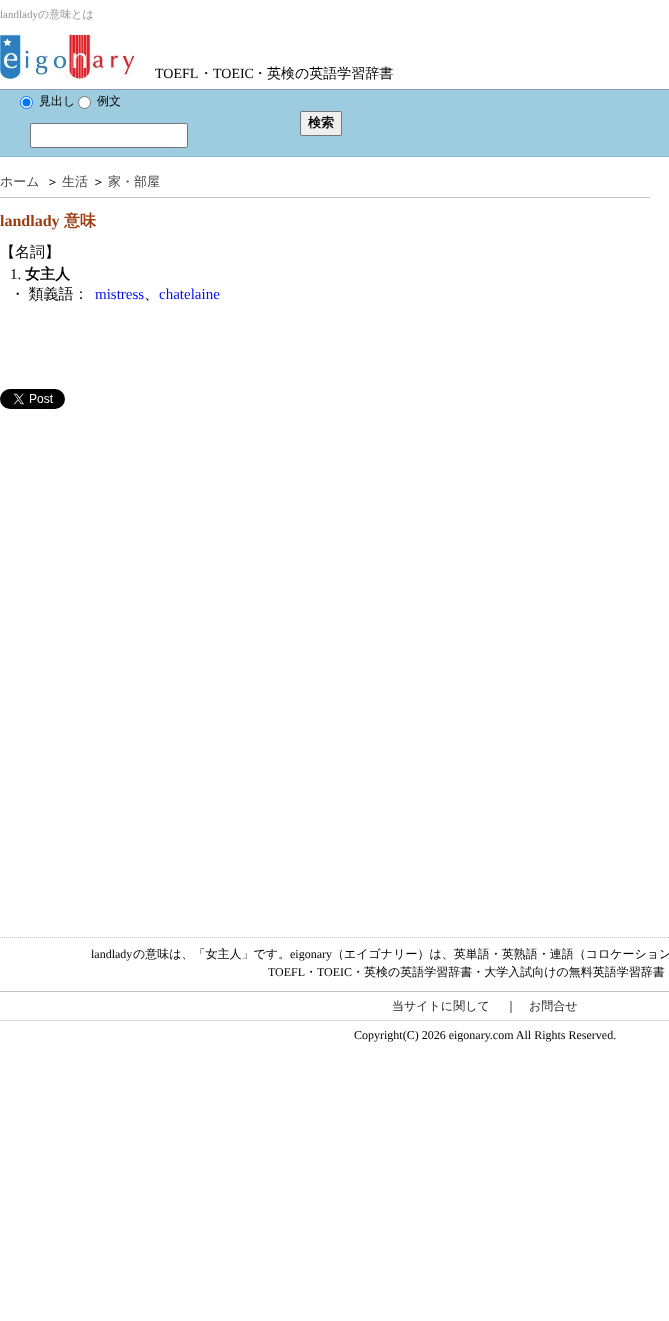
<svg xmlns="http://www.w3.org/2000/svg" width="669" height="1321">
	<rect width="100%" height="100%" fill="#FFFFFF" />
	<text x="0" y="18" font-family="Liberation Serif" font-size="11" fill="#939393">landlady</text>
	<text x="38" y="18" font-family="WenQuanYi Zen Hei" font-size="11" font-weight="500" fill="#939393">の意味とは</text>
	<image x="0" y="31" width="135" height="49" href="assets/img1.png" />
	<text x="155" y="78" font-family="Liberation Serif" font-size="14" fill="#000000">TOEFL</text>
	<text x="199" y="78" font-family="WenQuanYi Zen Hei" font-size="14" font-weight="500" fill="#000000">・</text>
	<text x="213" y="78" font-family="Liberation Serif" font-size="14" fill="#000000">TOEIC</text>
	<text x="253" y="78" font-family="WenQuanYi Zen Hei" font-size="14" font-weight="500" fill="#000000">・英検の英語学習辞書</text>
	<rect x="0" y="90" width="669" height="66" fill="#9DCCE0" />
	<rect x="0" y="89" width="669" height="1" fill="#8C9AC1" />
	<rect x="0" y="156" width="669" height="1" fill="#89BDDE" />
	<circle cx="26.5" cy="102.5" r="6" fill="#FFFFFF" stroke="#0075FF" />
	<circle cx="26.5" cy="102.5" r="4" fill="#0075FF" />
	<text x="39" y="105" font-family="WenQuanYi Zen Hei" font-size="12" font-weight="500" fill="#000000">見出し</text>
	<circle cx="84.5" cy="102.5" r="6" fill="#FFFFFF" stroke="#767676" />
	<text x="97" y="105" font-family="WenQuanYi Zen Hei" font-size="12" font-weight="500" fill="#000000">例文</text>
	<rect x="30.5" y="123.5" width="157" height="24" rx="1.5" fill="#FFFFFF" stroke="#767676" />
	<rect x="300.5" y="111.5" width="41" height="24" rx="1.5" fill="#EFEFEF" stroke="#767676" />
	<text x="308" y="127" font-family="WenQuanYi Zen Hei" font-size="13" font-weight="700" fill="#000000">検索</text>
	<rect x="0" y="197" width="650" height="1" fill="#C3C3C3" />
	<text x="0" y="186" font-family="WenQuanYi Zen Hei" font-size="13" font-weight="500" fill="#444444">ホーム</text>
	<text x="46" y="186" font-family="WenQuanYi Zen Hei" font-size="13" font-weight="500" fill="#000000">＞</text>
	<text x="62" y="186" font-family="WenQuanYi Zen Hei" font-size="13" font-weight="500" fill="#444444">生活</text>
	<text x="92" y="186" font-family="WenQuanYi Zen Hei" font-size="13" font-weight="500" fill="#000000">＞</text>
	<text x="108" y="186" font-family="WenQuanYi Zen Hei" font-size="13" font-weight="500" fill="#444444">家・部屋</text>
	<text x="0" y="226" font-family="Liberation Serif" font-size="16" font-weight="700" fill="#9C3B0F">landlady</text>
	<text x="64" y="226" font-family="WenQuanYi Zen Hei" font-size="16" font-weight="700" fill="#9C3B0F">意味</text>
	<text x="0" y="257" font-family="WenQuanYi Zen Hei" font-size="15" font-weight="500" fill="#000000">【名詞】</text>
	<text x="10" y="279" font-family="Liberation Serif" font-size="15" fill="#000000">1.</text>
	<text x="25" y="279" font-family="WenQuanYi Zen Hei" font-size="15" font-weight="700" fill="#000000">女主人</text>
	<text x="10" y="299" word-spacing="-1" font-family="WenQuanYi Zen Hei" font-size="15" font-weight="500" fill="#000000">・ 類義語：</text>
	<text x="95" y="299" font-family="Liberation Serif" font-size="15" fill="#0010E8">mistress</text>
	<text x="144" y="299" font-family="WenQuanYi Zen Hei" font-size="15" font-weight="500" fill="#000000">、</text>
	<text x="159" y="299" font-family="Liberation Serif" font-size="15" fill="#0010E8">chatelaine</text>
	<image x="0" y="389" width="65" height="20" href="assets/img2.png" />
	<path d="M0 937.5H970" fill="none" stroke="#C0C0C0" stroke-dasharray="1 1" />
	<text x="91" y="958" font-family="Liberation Serif" font-size="12" fill="#000000">landlady</text>
	<text x="133" y="958" font-family="WenQuanYi Zen Hei" font-size="12" font-weight="500" fill="#000000">の意味は、「女主人」です。</text>
	<text x="290" y="958" font-family="Liberation Serif" font-size="12" fill="#000000">eigonary</text>
	<text x="332" y="958" font-family="WenQuanYi Zen Hei" font-size="12" font-weight="500" fill="#000000">（エイゴナリー）は、英単語・英熟語・連語（コロケーション</text>
	<text x="268" y="976" font-family="Liberation Serif" font-size="12" fill="#000000">TOEFL</text>
	<text x="305" y="976" font-family="WenQuanYi Zen Hei" font-size="12" font-weight="500" fill="#000000">・</text>
	<text x="317" y="976" font-family="Liberation Serif" font-size="12" fill="#000000">TOEIC</text>
	<text x="352" y="976" font-family="WenQuanYi Zen Hei" font-size="12" font-weight="500" fill="#000000">・英検の英語学習辞書・大学入試向けの無料英語学習辞書</text>
	<rect x="0" y="991" width="669" height="1" fill="#C0C0C0" />
	<rect x="0" y="1020" width="669" height="1" fill="#DBDBDB" />
	<text x="392" y="1010" font-family="WenQuanYi Zen Hei" font-size="12" font-weight="500" fill="#292929">当サイトに関して</text>
	<text x="505" y="1010" font-family="WenQuanYi Zen Hei" font-size="12" font-weight="500" fill="#000000">｜</text>
	<text x="529" y="1010" font-family="WenQuanYi Zen Hei" font-size="12" font-weight="500" fill="#292929">お問合せ</text>
	<text x="354" y="1039" font-family="Liberation Serif" font-size="12" fill="#000000">Copyright(C) 2026 eigonary.com All Rights Reserved.</text>
</svg>
